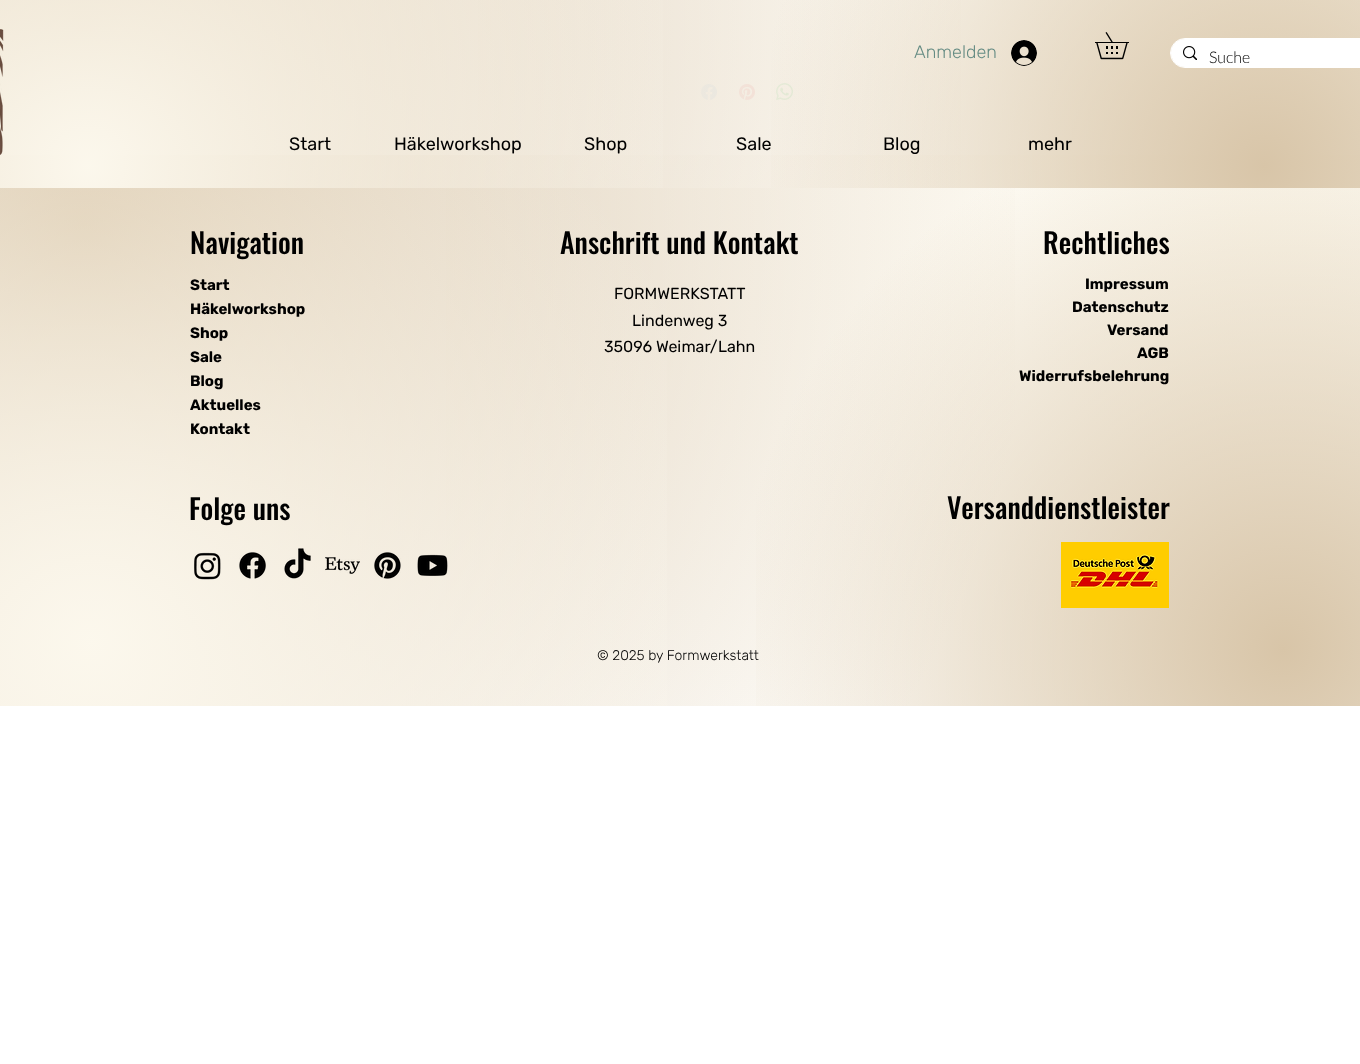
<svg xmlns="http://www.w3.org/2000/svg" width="1360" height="1064">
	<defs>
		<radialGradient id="g1" gradientUnits="userSpaceOnUse" cx="1264" cy="224" r="1353"><stop offset="0" stop-color="#FCF8ED" /><stop offset="0.7" stop-color="#FFFFFF" /></radialGradient>
		<radialGradient id="g2" gradientUnits="userSpaceOnUse" cx="84" cy="225" r="1364"><stop offset="0" stop-color="#D8C5A8" /><stop offset="0.7" stop-color="#D8C5A8" stop-opacity="0" /></radialGradient>
		<radialGradient id="g3" gradientUnits="userSpaceOnUse" cx="91" cy="642" r="1359"><stop offset="0" stop-color="#FCF8ED" stop-opacity="0.99" /><stop offset="0.5" stop-color="#FCF8ED" stop-opacity="0" /></radialGradient>
		<radialGradient id="g4" gradientUnits="userSpaceOnUse" cx="1283" cy="649" r="1375"><stop offset="0" stop-color="#D8C5A8" /><stop offset="0.4" stop-color="#D8C5A8" stop-opacity="0" /></radialGradient>
		<radialGradient id="g5" gradientUnits="userSpaceOnUse" cx="665" cy="93" r="701"><stop offset="0" stop-color="#FFFFFF" /><stop offset="1" stop-color="#FFFFFF" stop-opacity="0" /></radialGradient>
		<radialGradient id="g6" gradientUnits="userSpaceOnUse" cx="1275" cy="17" r="1286"><stop offset="0" stop-color="#FCF8ED" /><stop offset="0.7" stop-color="#FCF8ED" stop-opacity="0" /></radialGradient>
		<radialGradient id="g7" gradientUnits="userSpaceOnUse" cx="84" cy="24" r="1287"><stop offset="0" stop-color="#D8C5A8" /><stop offset="0.7" stop-color="#D8C5A8" stop-opacity="0" /></radialGradient>
		<radialGradient id="g8" gradientUnits="userSpaceOnUse" cx="88" cy="166" r="1282"><stop offset="0" stop-color="#FCF8ED" stop-opacity="0.99" /><stop offset="0.5" stop-color="#FCF8ED" stop-opacity="0" /></radialGradient>
		<radialGradient id="g9" gradientUnits="userSpaceOnUse" cx="1264" cy="166" r="1275"><stop offset="0" stop-color="#D8C5A8" /><stop offset="0.4" stop-color="#D8C5A8" stop-opacity="0" /></radialGradient>
	</defs>
	<rect width="100%" height="100%" fill="#FFFFFF" />
	<image x="701" y="84" width="16" height="16" href="assets/img5.png" />
	<image x="739" y="84" width="16" height="16" href="assets/img6.png" />
	<image x="776" y="83" width="17" height="17" href="assets/img7.png" />
	<rect x="446" y="155" width="914" height="551" fill="url(#g1)" />
	<rect x="0" y="155" width="1015" height="551" fill="url(#g2)" />
	<rect x="0" y="155" width="667" height="551" fill="url(#g3)" />
	<rect x="756" y="155" width="604" height="551" fill="url(#g4)" />
	<rect x="0" y="83" width="1298" height="105" fill="url(#g5)" />
	<rect x="478" y="0" width="882" height="188" fill="url(#g6)" />
	<rect x="0" y="0" width="961" height="188" fill="url(#g7)" />
	<rect x="0" y="0" width="663" height="188" fill="url(#g8)" />
	<rect x="771" y="0" width="589" height="188" fill="url(#g9)" />
	<image x="0" y="29" width="4" height="126" href="assets/img1.png" />
	<text x="914" y="58" font-family="Rubik" font-size="18" font-weight="300" fill="#648B83">Anmelden</text>
	<image x="1011" y="40" width="26" height="26" href="assets/img2.png" />
	<image x="1095" y="32" width="34" height="28" href="assets/img3.png" />
	<rect x="1170.5" y="38.5" width="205" height="29" rx="14.5" fill="none" stroke="#FFFFFF" />
	<rect x="1171" y="39" width="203" height="28" rx="14" fill="#FFFFFF" />
	<image x="1183" y="46" width="14" height="14" href="assets/img4.png" />
	<text x="1209" y="63" font-family="Lato" font-size="16" font-weight="300" fill="#000000">Suche</text>
	<g font-family="Rubik" font-size="18" fill="#000000">
		<text x="289" y="150">Start</text>
		<text x="394" y="150">Häkelworkshop</text>
		<text x="584" y="150">Shop</text>
		<text x="736" y="150">Sale</text>
		<text x="883" y="150">Blog</text>
		<text x="1028" y="150">mehr</text>
	</g>
	<g font-family="Oswald" font-size="28" font-weight="500" fill="#000000">
		<text x="190" y="254">Navigation</text>
		<text x="560" y="254">Anschrift und Kontakt</text>
		<text x="1043" y="254">Rechtliches</text>
	</g>
	<g font-family="Rubik" font-size="15" font-weight="700" fill="#000000">
		<text x="190" y="290">Start</text>
		<text x="190" y="314">Häkelworkshop</text>
		<text x="190" y="338">Shop</text>
		<text x="190" y="362">Sale</text>
		<text x="190" y="386">Blog</text>
		<text x="190" y="410">Aktuelles</text>
		<text x="190" y="434">Kontakt</text>
	</g>
	<g font-family="Rubik" font-size="16" fill="#000000">
		<text x="614" y="299">FORMWERKSTATT</text>
		<text x="632" y="326">Lindenweg 3</text>
		<text x="604" y="352">35096 Weimar/Lahn</text>
	</g>
	<g font-family="Rubik" font-size="15" font-weight="700" fill="#000000">
		<text x="1085" y="289">Impressum</text>
		<text x="1072" y="312">Datenschutz</text>
		<text x="1107" y="335">Versand</text>
		<text x="1137" y="358">AGB</text>
		<text x="1019" y="381">Widerrufsbelehrung</text>
	</g>
	<g font-family="Oswald" font-size="28" font-weight="500" fill="#000000">
		<text x="189" y="520">Folge uns</text>
		<text x="947" y="519">Versanddienstleister</text>
	</g>
	<image x="194" y="552" width="27" height="28" href="assets/img8.png" />
	<image x="239" y="552" width="27" height="27" href="assets/img9.png" />
	<image x="284" y="548" width="27" height="31" href="assets/img10.png" />
	<image x="325" y="557" width="35" height="17" href="assets/img11.png" />
	<image x="374" y="552" width="27" height="27" href="assets/img12.png" />
	<image x="417" y="554" width="31" height="22" href="assets/img13.png" />
	<image x="1061" y="542" width="108" height="66" href="assets/img14.png" />
	<text x="597" y="660" font-family="Rubik" font-size="14" font-weight="300" fill="#000000">© 2025 by Formwerkstatt</text>
</svg>
